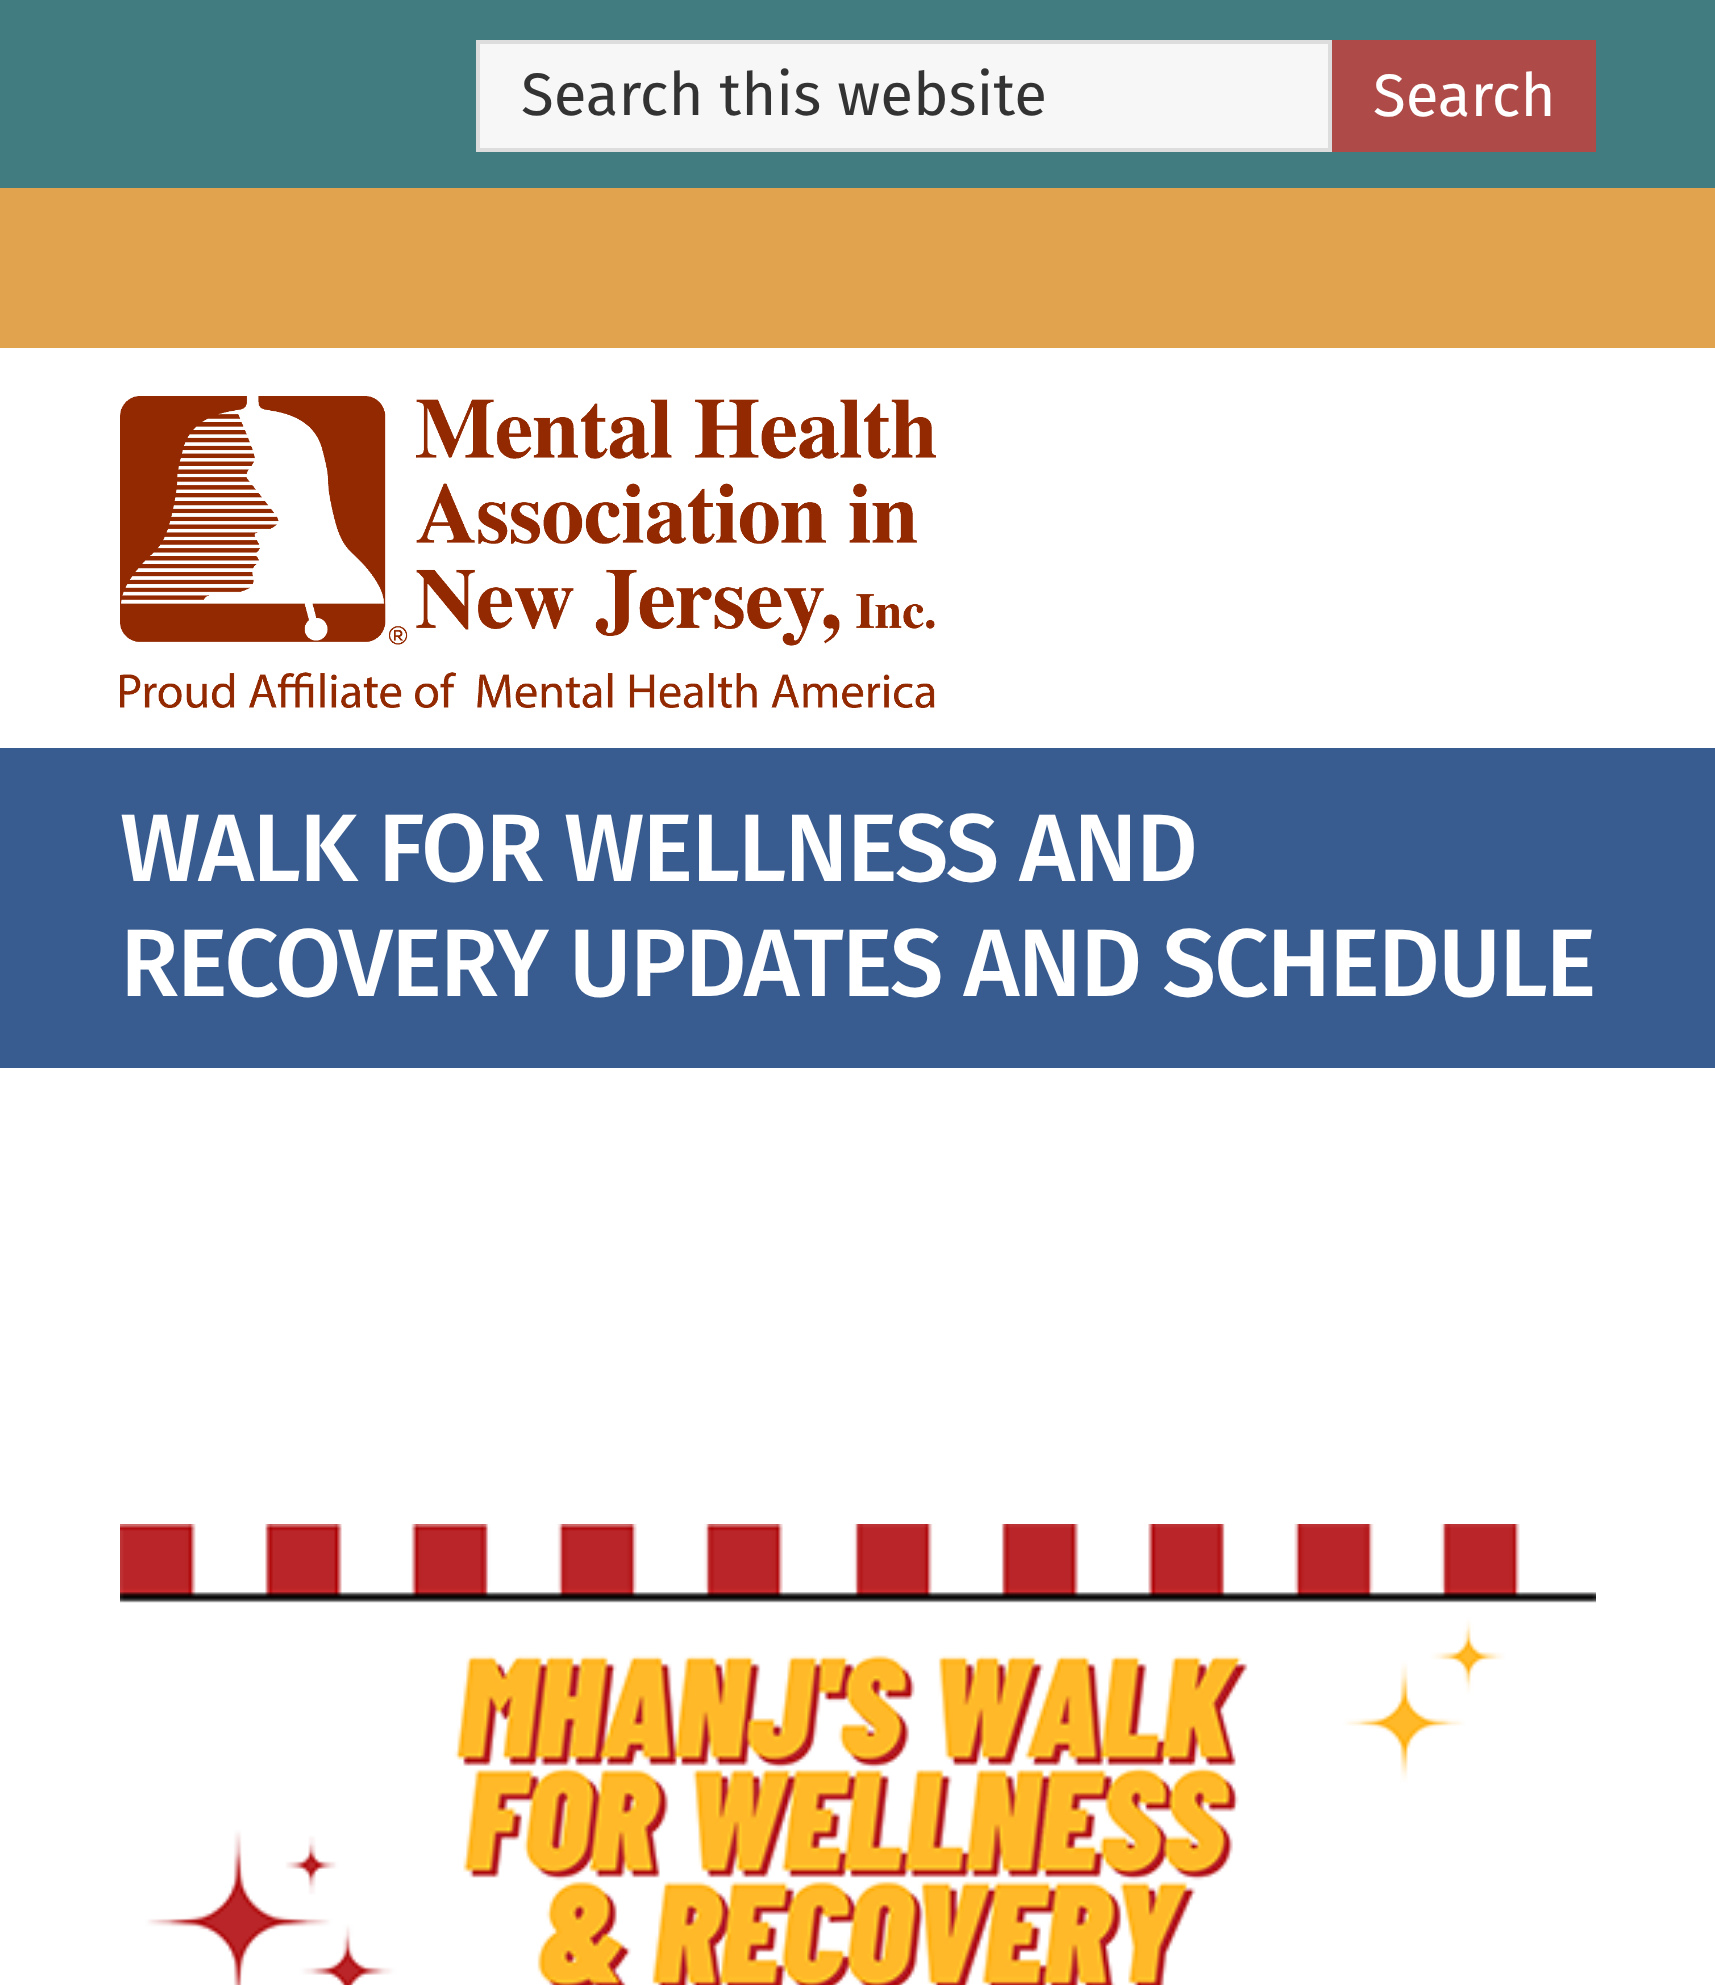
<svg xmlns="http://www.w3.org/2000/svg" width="1715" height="1985">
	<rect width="100%" height="100%" fill="#FFFFFF" />
	<rect x="0" y="0" width="1715" height="188" fill="#407C80" />
	<rect x="478" y="42" width="852" height="108" fill="#F7F7F7" stroke="#DDDDDD" stroke-width="4" />
	<text x="521" y="115" font-family="Fira Sans" font-size="60" fill="#333333">Search this website</text>
	<rect x="1332" y="40" width="264" height="112" fill="#AE4B48" />
	<text x="1373" y="116" font-family="Fira Sans" font-size="60" fill="#FFFFFF">Search</text>
	<rect x="0" y="188" width="1715" height="160" fill="#E1A34D" />
	<image x="120" y="396" width="816" height="312" href="assets/img1.png" />
	<rect x="0" y="748" width="1715" height="320" fill="#385C90" />
	<g font-family="Fira Sans" font-size="96" font-weight="500" letter-spacing="-2" fill="#FFFFFF">
		<text x="120" y="881">WALK FOR WELLNESS AND</text>
		<text x="120" y="996">RECOVERY UPDATES AND SCHEDULE</text>
	</g>
	<image x="120" y="1524" width="1476" height="461" href="assets/img2.png" />
</svg>
